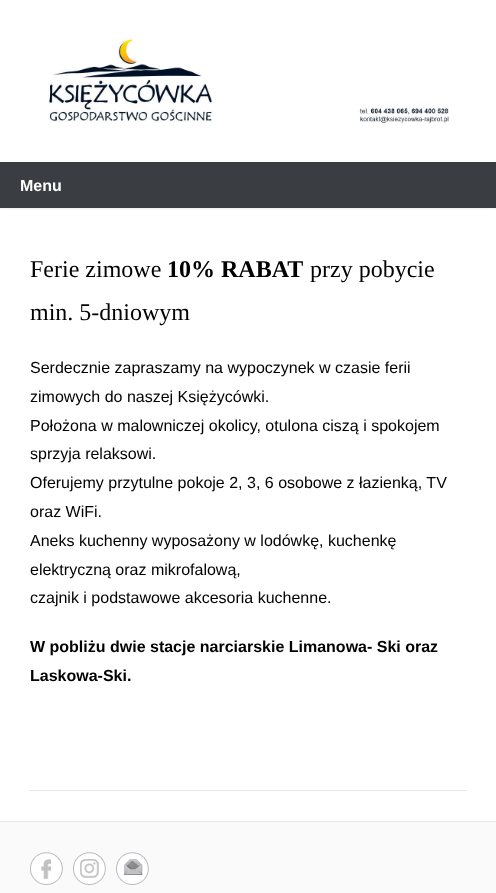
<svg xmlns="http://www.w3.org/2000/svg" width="496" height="893">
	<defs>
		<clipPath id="clip1"><rect x="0" y="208" width="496" height="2" /></clipPath>
	</defs>
	<rect width="100%" height="100%" fill="#FFFFFF" />
	<image x="48" y="39" width="401" height="86" href="assets/img1.png" />
	<rect x="0" y="162" width="496" height="46" fill="#3A3D41" />
	<g clip-path="url(#clip1)">
		<rect x="0" y="163" width="496" height="46" fill="#404040" fill-opacity="0.1" filter="blur(1px)" />
	</g>
	<text x="20" y="191" font-family="Liberation Sans" font-size="16" font-weight="700" fill="#FFFFFF">Menu</text>
	<rect x="30" y="790" width="436" height="1" fill="#E6E6E6" />
	<text x="30" y="277" font-family="Liberation Serif" font-size="24" fill="#000000">Ferie zimowe</text>
	<text x="167" y="277" font-family="Liberation Serif" font-size="24" font-weight="700" fill="#000000">10% RABAT</text>
	<g font-family="Liberation Serif" font-size="24" fill="#000000">
		<text x="310" y="277">przy pobycie</text>
		<text x="30" y="320">min. 5-dniowym</text>
	</g>
	<g font-family="Liberation Sans" font-size="16" fill="#000000">
		<text x="30" y="373">Serdecznie zapraszamy na wypoczynek w czasie ferii</text>
		<text x="30" y="402">zimowych do naszej Księżycówki.</text>
		<text x="30" y="431">Położona w malowniczej okolicy, otulona ciszą i spokojem</text>
		<text x="30" y="459">sprzyja relaksowi.</text>
		<text x="30" y="488">Oferujemy przytulne pokoje 2, 3, 6 osobowe z łazienką, TV</text>
		<text x="30" y="517">oraz WiFi.</text>
		<text x="30" y="546">Aneks kuchenny wyposażony w lodówkę, kuchenkę</text>
		<text x="30" y="575">elektryczną oraz mikrofalową,</text>
		<text x="30" y="603">czajnik i podstawowe akcesoria kuchenne.</text>
	</g>
	<g font-family="Liberation Sans" font-size="16" font-weight="700" fill="#000000">
		<text x="30" y="652">W pobliżu dwie stacje narciarskie Limanowa- Ski oraz</text>
		<text x="30" y="681">Laskowa-Ski.</text>
	</g>
	<rect x="0" y="822" width="496" height="71" fill="#FAFAFA" />
	<rect x="0" y="821" width="496" height="1" fill="#E6E6E6" />
	<image x="30" y="852" width="33" height="33" href="assets/img2.png" />
	<image x="73" y="852" width="33" height="33" href="assets/img3.png" />
	<image x="116" y="852" width="33" height="33" href="assets/img4.png" />
</svg>
